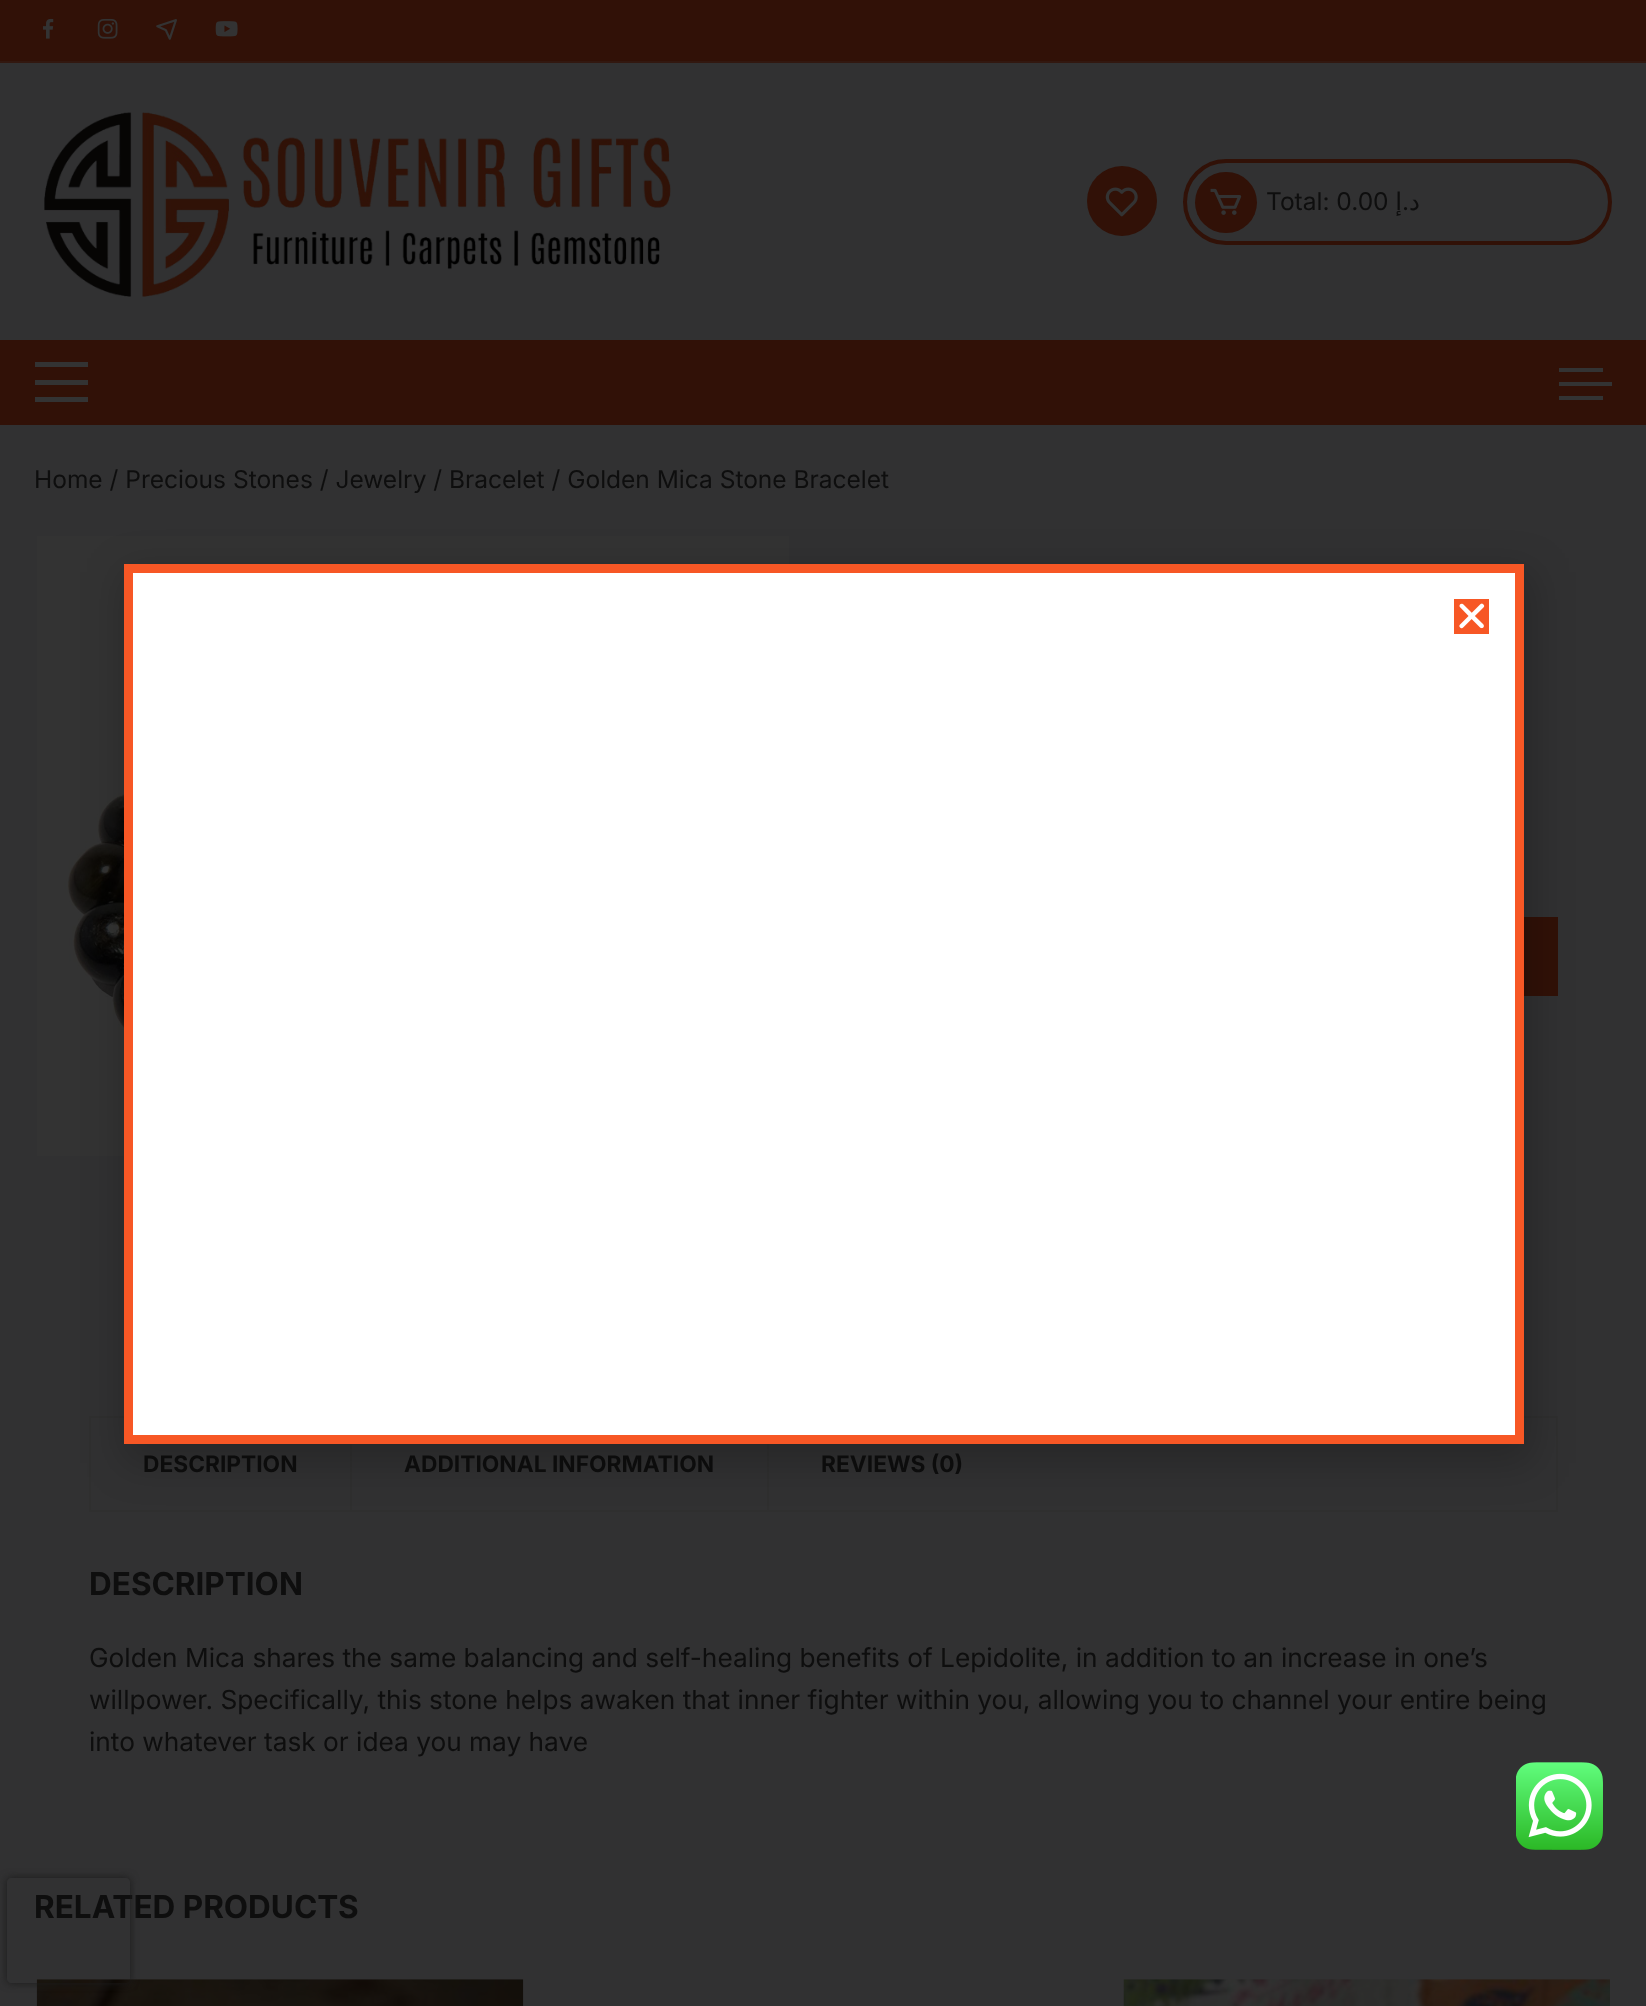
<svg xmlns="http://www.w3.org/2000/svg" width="1646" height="2006">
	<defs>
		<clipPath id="clip1"><path d="M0 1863H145V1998H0ZM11 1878H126C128 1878 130 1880 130 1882V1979C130 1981 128 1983 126 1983H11C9 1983 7 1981 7 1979V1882C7 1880 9 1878 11 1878Z" clip-rule="evenodd" /></clipPath>
	</defs>
	<rect width="100%" height="100%" fill="#313132" />
	<rect x="0" y="0" width="1646" height="61" fill="#311107" />
	<rect x="0" y="61" width="1646" height="2" fill="#321810" />
	<image x="43" y="18" width="11" height="21" href="assets/img1.png" />
	<image x="97" y="18" width="21" height="21" href="assets/img2.png" />
	<image x="156" y="19" width="21" height="21" href="assets/img3.png" />
	<image x="215" y="21" width="23" height="16" href="assets/img4.png" />
	<image x="44" y="112" width="627" height="185" href="assets/img5.png" />
	<circle cx="1122" cy="201" r="35" fill="#311107" />
	<image x="1105" y="187" width="33" height="30" href="assets/img6.png" />
	<rect x="1185" y="161" width="425" height="82" rx="41" fill="none" stroke="#311107" stroke-width="4" />
	<rect x="1195" y="172" width="62" height="61" rx="30.5" fill="#311107" />
	<image x="1210" y="188" width="32" height="27" href="assets/img7.png" />
	<text x="1266" y="210" font-family="Inter" font-size="24.5" fill="#0E0E0E">Total: 0.00</text>
	<text x="1402" y="210" font-family="DejaVu Sans" font-size="24.5" direction="rtl" fill="#0E0E0E">إ</text>
	<text x="1409" y="210" font-family="Inter" font-size="24.5" direction="rtl" fill="#0E0E0E">.</text>
	<text x="1420" y="210" font-family="DejaVu Sans" font-size="24.5" direction="rtl" fill="#0E0E0E">د</text>
	<rect x="0" y="340" width="1646" height="85" fill="#311107" />
	<rect x="35" y="362" width="53" height="5" fill="#333333" />
	<rect x="35" y="380" width="53" height="5" fill="#333333" />
	<rect x="35" y="397" width="53" height="5" fill="#333333" />
	<rect x="1559" y="368" width="44" height="4" fill="#333333" />
	<rect x="1559" y="382" width="53" height="4" fill="#333333" />
	<rect x="1559" y="396" width="44" height="4" fill="#333333" />
	<text x="34" y="488" font-family="Inter" font-size="24.5" fill="#0E0E0E">Home / Precious Stones / Jewelry / Bracelet / Golden Mica Stone Bracelet</text>
	<image x="37" y="535" width="752" height="621" href="assets/img8.png" />
	<rect x="1524" y="917" width="34" height="79" fill="#311107" />
	<rect x="90" y="1417" width="1467" height="94" fill="none" stroke="#2F2F2F" stroke-width="2" />
	<rect x="350" y="1444" width="2" height="66" fill="#2F2F2F" />
	<text x="143" y="1472" font-family="Inter" font-size="22.75" font-weight="700" fill="#0E0E0E">DESCRIPTION</text>
	<rect x="767" y="1444" width="2" height="66" fill="#2F2F2F" />
	<g font-family="Inter" font-size="22.75" font-weight="700" fill="#0E0E0E">
		<text x="404" y="1472">ADDITIONAL INFORMATION</text>
		<text x="821" y="1472">REVIEWS (0)</text>
	</g>
	<text x="89" y="1595" font-family="Inter" font-size="31.5" font-weight="700" fill="#0E0E0E">DESCRIPTION</text>
	<g font-family="Inter" font-size="26.25" fill="#0E0E0E">
		<text x="89" y="1667">Golden Mica shares the same balancing and self-healing benefits of Lepidolite, in addition to an increase in one’s</text>
		<text x="89" y="1709">willpower. Specifically, this stone helps awaken that inner fighter within you, allowing you to channel your entire being</text>
		<text x="89" y="1751">into whatever task or idea you may have</text>
	</g>
	<text x="34" y="1918" font-family="Inter" font-size="31.5" font-weight="700" fill="#0E0E0E">RELATED PRODUCTS</text>
	<image x="36" y="1979" width="488" height="27" href="assets/img9.png" />
	<image x="1123" y="1979" width="487" height="27" href="assets/img10.png" />
	<rect x="123" y="572" width="1410" height="891" fill="#000000" fill-opacity="0.2" filter="blur(20px)" />
	<rect x="128.5" y="568.5" width="1391" height="871" fill="#FFFFFF" stroke="#F75725" stroke-width="9" />
	<rect x="1454" y="599" width="35" height="35" fill="#F75725" />
	<image x="1459" y="603" width="26" height="26" href="assets/img11.png" />
	<image x="1516" y="1762" width="87" height="88" href="assets/img12.png" />
	<g clip-path="url(#clip1)">
		<rect x="7" y="1878" width="123" height="105" rx="4" fill="#1A1A1A" filter="blur(4.5px)" />
	</g>
</svg>
